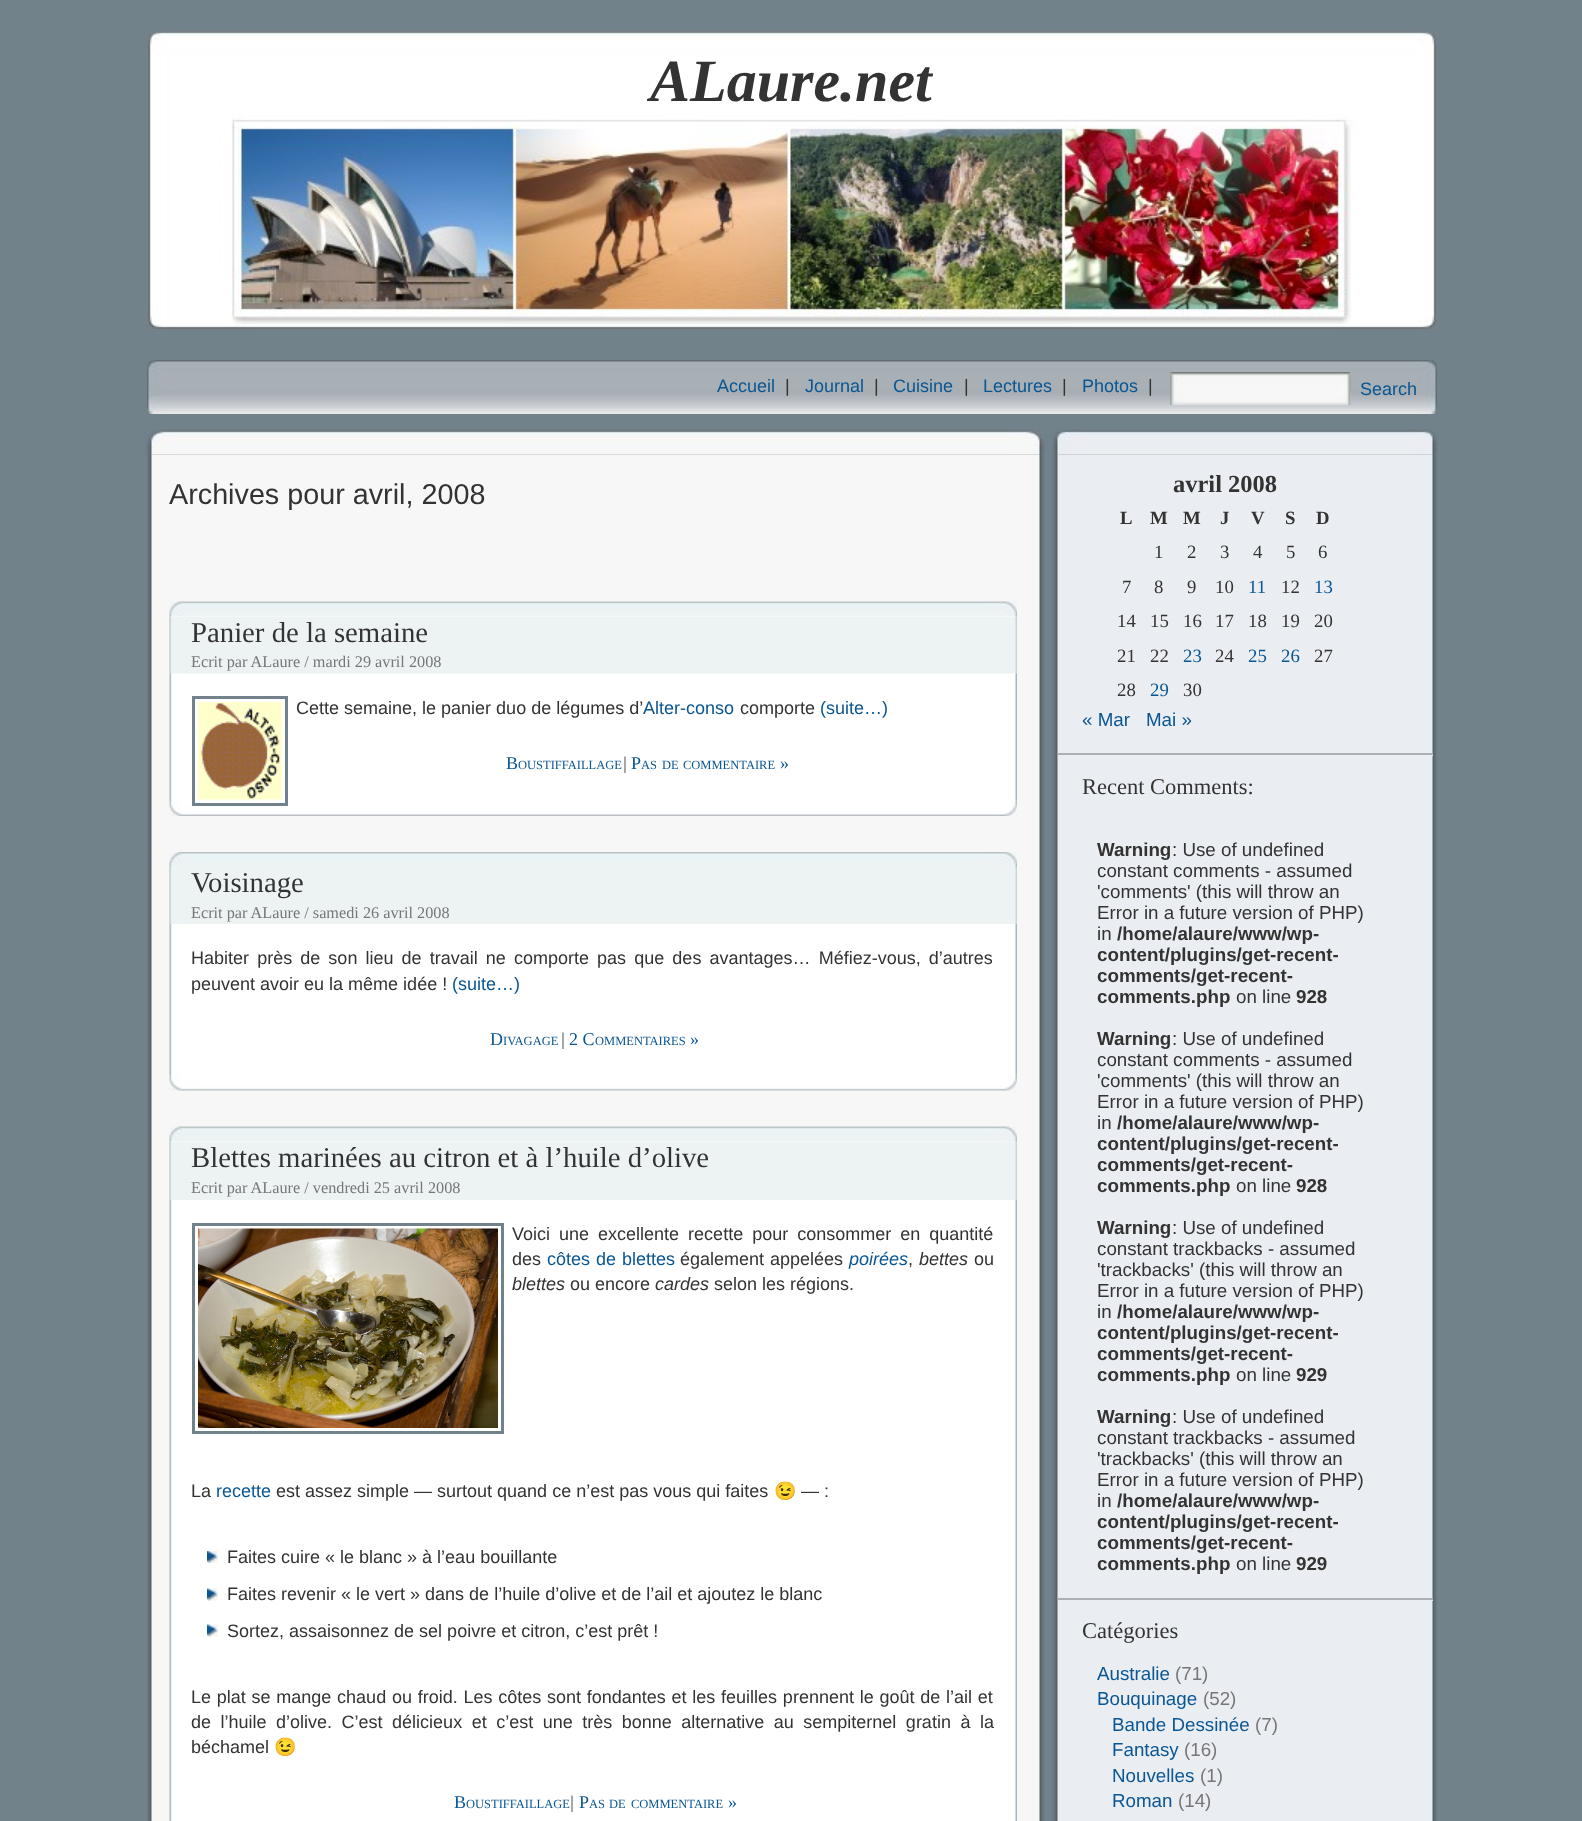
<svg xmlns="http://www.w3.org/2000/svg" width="1582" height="1821">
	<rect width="100%" height="100%" fill="#71828A" />
	<image x="147" y="30" width="1290" height="300" href="assets/img1.png" />
	<text x="650" y="101" font-family="Liberation Serif" font-size="60" font-weight="700" font-style="italic" fill="#333333">ALaure.net</text>
	<image x="147" y="360" width="1290" height="54" href="assets/img2.png" />
	<text x="717" y="392" font-family="Liberation Sans" font-size="18" fill="#0A5692">Accueil</text>
	<text x="785" y="392" font-family="Liberation Sans" font-size="18" fill="#333333">|</text>
	<text x="805" y="392" font-family="Liberation Sans" font-size="18" fill="#0A5692">Journal</text>
	<text x="874" y="392" font-family="Liberation Sans" font-size="18" fill="#333333">|</text>
	<text x="893" y="392" font-family="Liberation Sans" font-size="18" fill="#0A5692">Cuisine</text>
	<text x="964" y="392" font-family="Liberation Sans" font-size="18" fill="#333333">|</text>
	<text x="983" y="392" font-family="Liberation Sans" font-size="18" fill="#0A5692">Lectures</text>
	<text x="1062" y="392" font-family="Liberation Sans" font-size="18" fill="#333333">|</text>
	<text x="1082" y="392" font-family="Liberation Sans" font-size="18" fill="#0A5692">Photos</text>
	<text x="1148" y="392" font-family="Liberation Sans" font-size="18" fill="#333333">|</text>
	<image x="1170" y="372" width="182" height="33" href="assets/img3.png" />
	<text x="1360" y="395" font-family="Liberation Sans" font-size="18" fill="#0A5692">Search</text>
	<image x="145" y="429" width="1293" height="26" href="assets/img4.png" />
	<image x="147" y="454" width="1290" height="1367" href="assets/img5.png" />
	<text x="169" y="504" font-family="Liberation Sans" font-size="28.75" fill="#333333">Archives pour avril, 2008</text>
	<image x="169" y="601" width="848" height="16" href="assets/img6.png" />
	<image x="169" y="798" width="848" height="18" href="assets/img7.png" />
	<image x="169" y="616" width="848" height="184" href="assets/img8.png" />
	<image x="170" y="616" width="847" height="58" href="assets/img9.png" />
	<text x="191" y="642" font-family="Liberation Serif" font-size="28.75" fill="#333333">Panier de la semaine</text>
	<text x="191" y="667" font-family="Liberation Serif" font-size="16.25" fill="#777777">Ecrit par ALaure / mardi 29 avril 2008</text>
	<rect x="193.5" y="697.5" width="93" height="107" fill="none" stroke="#71828A" stroke-width="3" />
	<image x="198" y="702" width="84" height="98" href="assets/img10.png" />
	<text x="296" y="714" font-family="Liberation Sans" font-size="18" fill="#333333">Cette semaine, le panier duo de légumes d’</text>
	<text x="643" y="714" font-family="Liberation Sans" font-size="18" fill="#0A5692">Alter-conso</text>
	<text x="740" y="714" font-family="Liberation Sans" font-size="18" fill="#333333">comporte</text>
	<text x="820" y="714" font-family="Liberation Sans" font-size="18" fill="#0A5692">(suite…)</text>
	<text x="506" y="769" font-family="Liberation Serif" font-size="18" fill="#0A5692">B</text>
	<text x="518" y="769" font-family="Liberation Serif" font-size="12.5" fill="#0A5692">OUSTIFFAILLAGE</text>
	<text x="623" y="769" font-family="Liberation Serif" font-size="18" font-weight="700" fill="#777777">|</text>
	<text x="631" y="769" font-family="Liberation Serif" font-size="18" fill="#0A5692">P</text>
	<g font-family="Liberation Serif" font-size="12.5" fill="#0A5692">
		<text x="641" y="769">AS</text>
		<text x="662" y="769">DE</text>
		<text x="683" y="769">COMMENTAIRE</text>
	</g>
	<text x="780" y="769" font-family="Liberation Serif" font-size="18" fill="#0A5692">»</text>
	<image x="169" y="852" width="848" height="15" href="assets/img11.png" />
	<image x="169" y="1072" width="848" height="19" href="assets/img12.png" />
	<image x="169" y="867" width="848" height="207" href="assets/img13.png" />
	<image x="170" y="867" width="847" height="57" href="assets/img14.png" />
	<text x="191" y="892" font-family="Liberation Serif" font-size="28.75" fill="#333333">Voisinage</text>
	<text x="191" y="918" font-family="Liberation Serif" font-size="16.25" fill="#777777">Ecrit par ALaure / samedi 26 avril 2008</text>
	<g font-family="Liberation Sans" font-size="18" fill="#333333">
		<text x="191" y="964" word-spacing="3.1">Habiter près de son lieu de travail ne comporte pas que des avantages… Méfiez-vous, d’autres</text>
		<text x="191" y="990">peuvent avoir eu la même idée !</text>
	</g>
	<text x="452" y="990" font-family="Liberation Sans" font-size="18" fill="#0A5692">(suite…)</text>
	<text x="490" y="1045" font-family="Liberation Serif" font-size="18" fill="#0A5692">D</text>
	<text x="503" y="1045" font-family="Liberation Serif" font-size="12.5" fill="#0A5692">IVAGAGE</text>
	<text x="561" y="1045" font-family="Liberation Serif" font-size="18" font-weight="700" fill="#777777">|</text>
	<text x="569" y="1045" font-family="Liberation Serif" font-size="18" fill="#0A5692">2 C</text>
	<text x="595" y="1045" font-family="Liberation Serif" font-size="12.5" fill="#0A5692">OMMENTAIRES</text>
	<text x="690" y="1045" font-family="Liberation Serif" font-size="18" fill="#0A5692">»</text>
	<image x="169" y="1126" width="848" height="16" href="assets/img6.png" />
	<image x="169" y="1141" width="848" height="680" href="assets/img15.png" />
	<image x="170" y="1141" width="847" height="59" href="assets/img16.png" />
	<text x="191" y="1167" font-family="Liberation Serif" font-size="28.75" fill="#333333">Blettes marinées au citron et à l’huile d’olive</text>
	<text x="191" y="1193" font-family="Liberation Serif" font-size="16.25" fill="#777777">Ecrit par ALaure / vendredi 25 avril 2008</text>
	<rect x="193.5" y="1224.5" width="309" height="208" fill="none" stroke="#71828A" stroke-width="3" />
	<image x="198" y="1228" width="300" height="200" href="assets/img17.png" />
	<g font-family="Liberation Sans" font-size="18" fill="#333333">
		<text x="512" y="1240" word-spacing="4">Voici une excellente recette pour consommer en quantité</text>
		<text x="512" y="1265">des</text>
	</g>
	<text x="547" y="1265" word-spacing="1" font-family="Liberation Sans" font-size="18" fill="#0A5692">côtes de blettes</text>
	<text x="680" y="1265" word-spacing="1" font-family="Liberation Sans" font-size="18" fill="#333333">également appelées</text>
	<text x="849" y="1265" font-family="Liberation Sans" font-size="18" font-style="italic" fill="#0A5692">poirées</text>
	<text x="908" y="1265" font-family="Liberation Sans" font-size="18" fill="#333333">,</text>
	<text x="919" y="1265" font-family="Liberation Sans" font-size="18" font-style="italic" fill="#333333">bettes</text>
	<text x="974" y="1265" font-family="Liberation Sans" font-size="18" fill="#333333">ou</text>
	<text x="512" y="1290" font-family="Liberation Sans" font-size="18" font-style="italic" fill="#333333">blettes</text>
	<text x="570" y="1290" font-family="Liberation Sans" font-size="18" fill="#333333">ou encore</text>
	<text x="655" y="1290" font-family="Liberation Sans" font-size="18" font-style="italic" fill="#333333">cardes</text>
	<g font-family="Liberation Sans" font-size="18" fill="#333333">
		<text x="714" y="1290">selon les régions.</text>
		<text x="191" y="1497">La</text>
	</g>
	<text x="216" y="1497" font-family="Liberation Sans" font-size="18" fill="#0A5692">recette</text>
	<text x="276" y="1497" font-family="Liberation Sans" font-size="18" fill="#333333">est assez simple — surtout quand ce n’est pas vous qui faites</text>
	<text x="774" y="1497" font-family="Noto Color Emoji" font-size="18" fill="#333333">😉</text>
	<text x="801" y="1497" font-family="Liberation Sans" font-size="18" fill="#333333">— :</text>
	<image x="207" y="1551" width="11" height="12" href="assets/img18.png" />
	<text x="227" y="1563" font-family="Liberation Sans" font-size="18" fill="#333333">Faites cuire « le blanc » à l’eau bouillante</text>
	<image x="207" y="1588" width="11" height="13" href="assets/img19.png" />
	<text x="227" y="1600" font-family="Liberation Sans" font-size="18" fill="#333333">Faites revenir « le vert » dans de l’huile d’olive et de l’ail et ajoutez le blanc</text>
	<image x="207" y="1624" width="11" height="13" href="assets/img19.png" />
	<g font-family="Liberation Sans" font-size="18" fill="#333333">
		<text x="227" y="1637">Sortez, assaisonnez de sel poivre et citron, c’est prêt !</text>
		<text x="191" y="1703" word-spacing="0.75">Le plat se mange chaud ou froid. Les côtes sont fondantes et les feuilles prennent le goût de l’ail et</text>
		<text x="191" y="1728" word-spacing="4.5">de l’huile d’olive. C’est délicieux et c’est une très bonne alternative au sempiternel gratin à la</text>
		<text x="191" y="1753">béchamel</text>
	</g>
	<text x="274" y="1753" font-family="Noto Color Emoji" font-size="18" fill="#333333">😉</text>
	<text x="454" y="1808" font-family="Liberation Serif" font-size="18" fill="#0A5692">B</text>
	<text x="466" y="1808" font-family="Liberation Serif" font-size="12.5" fill="#0A5692">OUSTIFFAILLAGE</text>
	<text x="570" y="1808" font-family="Liberation Serif" font-size="18" font-weight="700" fill="#777777">|</text>
	<text x="579" y="1808" font-family="Liberation Serif" font-size="18" fill="#0A5692">P</text>
	<g font-family="Liberation Serif" font-size="12.5" fill="#0A5692">
		<text x="589" y="1808">AS</text>
		<text x="609" y="1808">DE</text>
		<text x="631" y="1808">COMMENTAIRE</text>
	</g>
	<text x="728" y="1808" font-family="Liberation Serif" font-size="18" fill="#0A5692">»</text>
	<text x="1173" y="492" font-family="Liberation Serif" font-size="24.5" font-weight="700" fill="#333333">avril 2008</text>
	<g font-family="Liberation Serif" font-size="18.75" font-weight="700" fill="#333333">
		<text x="1120" y="524">L</text>
		<text x="1150" y="524">M</text>
		<text x="1183" y="524">M</text>
		<text x="1220" y="524">J</text>
		<text x="1251" y="524">V</text>
		<text x="1285" y="524">S</text>
		<text x="1316" y="524">D</text>
	</g>
	<g font-family="Liberation Serif" font-size="18.75" fill="#333333">
		<text x="1154" y="558">1</text>
		<text x="1187" y="558">2</text>
		<text x="1220" y="558">3</text>
		<text x="1253" y="558">4</text>
		<text x="1286" y="558">5</text>
		<text x="1318" y="558">6</text>
		<text x="1122" y="593">7</text>
		<text x="1154" y="593">8</text>
		<text x="1187" y="593">9</text>
		<text x="1215" y="593">10</text>
	</g>
	<text x="1248" y="593" font-family="Liberation Serif" font-size="18.75" fill="#0A5692">11</text>
	<text x="1281" y="593" font-family="Liberation Serif" font-size="18.75" fill="#333333">12</text>
	<text x="1314" y="593" font-family="Liberation Serif" font-size="18.75" fill="#0A5692">13</text>
	<g font-family="Liberation Serif" font-size="18.75" fill="#333333">
		<text x="1117" y="627">14</text>
		<text x="1150" y="627">15</text>
		<text x="1183" y="627">16</text>
		<text x="1215" y="627">17</text>
		<text x="1248" y="627">18</text>
		<text x="1281" y="627">19</text>
		<text x="1314" y="627">20</text>
		<text x="1117" y="662">21</text>
		<text x="1150" y="662">22</text>
	</g>
	<text x="1183" y="662" font-family="Liberation Serif" font-size="18.75" fill="#0A5692">23</text>
	<text x="1215" y="662" font-family="Liberation Serif" font-size="18.75" fill="#333333">24</text>
	<g font-family="Liberation Serif" font-size="18.75" fill="#0A5692">
		<text x="1248" y="662">25</text>
		<text x="1281" y="662">26</text>
	</g>
	<g font-family="Liberation Serif" font-size="18.75" fill="#333333">
		<text x="1314" y="662">27</text>
		<text x="1117" y="696">28</text>
	</g>
	<text x="1150" y="696" font-family="Liberation Serif" font-size="18.75" fill="#0A5692">29</text>
	<text x="1183" y="696" font-family="Liberation Serif" font-size="18.75" fill="#333333">30</text>
	<g font-family="Liberation Sans" font-size="18.75" fill="#0A5692">
		<text x="1082" y="726">« Mar</text>
		<text x="1146" y="726">Mai »</text>
	</g>
	<rect x="1431" y="755" width="2" height="1" fill="#EAEFF3" />
	<rect x="1058" y="753" width="375" height="2" fill="#ACB0B5" />
	<text x="1082" y="794" font-family="Liberation Serif" font-size="22.5" fill="#333333">Recent Comments:</text>
	<text x="1097" y="856" font-family="Liberation Sans" font-size="18.75" font-weight="700" fill="#333333">Warning</text>
	<g font-family="Liberation Sans" font-size="18.75" fill="#333333">
		<text x="1172" y="856">: Use of undefined</text>
		<text x="1097" y="877">constant comments - assumed</text>
		<text x="1097" y="898">'comments' (this will throw an</text>
		<text x="1097" y="919">Error in a future version of PHP)</text>
		<text x="1097" y="940">in</text>
	</g>
	<g font-family="Liberation Sans" font-size="18.75" font-weight="700" fill="#333333">
		<text x="1117" y="940">/home/alaure/www/wp-</text>
		<text x="1097" y="961">content/plugins/get-recent-</text>
		<text x="1097" y="982">comments/get-recent-</text>
		<text x="1097" y="1003">comments.php</text>
	</g>
	<text x="1236" y="1003" font-family="Liberation Sans" font-size="18.75" fill="#333333">on line</text>
	<g font-family="Liberation Sans" font-size="18.75" font-weight="700" fill="#333333">
		<text x="1296" y="1003">928</text>
		<text x="1097" y="1045">Warning</text>
	</g>
	<g font-family="Liberation Sans" font-size="18.75" fill="#333333">
		<text x="1172" y="1045">: Use of undefined</text>
		<text x="1097" y="1066">constant comments - assumed</text>
		<text x="1097" y="1087">'comments' (this will throw an</text>
		<text x="1097" y="1108">Error in a future version of PHP)</text>
		<text x="1097" y="1129">in</text>
	</g>
	<g font-family="Liberation Sans" font-size="18.75" font-weight="700" fill="#333333">
		<text x="1117" y="1129">/home/alaure/www/wp-</text>
		<text x="1097" y="1150">content/plugins/get-recent-</text>
		<text x="1097" y="1171">comments/get-recent-</text>
		<text x="1097" y="1192">comments.php</text>
	</g>
	<text x="1236" y="1192" font-family="Liberation Sans" font-size="18.75" fill="#333333">on line</text>
	<g font-family="Liberation Sans" font-size="18.75" font-weight="700" fill="#333333">
		<text x="1296" y="1192">928</text>
		<text x="1097" y="1234">Warning</text>
	</g>
	<g font-family="Liberation Sans" font-size="18.75" fill="#333333">
		<text x="1172" y="1234">: Use of undefined</text>
		<text x="1097" y="1255">constant trackbacks - assumed</text>
		<text x="1097" y="1276">'trackbacks' (this will throw an</text>
		<text x="1097" y="1297">Error in a future version of PHP)</text>
		<text x="1097" y="1318">in</text>
	</g>
	<g font-family="Liberation Sans" font-size="18.75" font-weight="700" fill="#333333">
		<text x="1117" y="1318">/home/alaure/www/wp-</text>
		<text x="1097" y="1339">content/plugins/get-recent-</text>
		<text x="1097" y="1360">comments/get-recent-</text>
		<text x="1097" y="1381">comments.php</text>
	</g>
	<text x="1236" y="1381" font-family="Liberation Sans" font-size="18.75" fill="#333333">on line</text>
	<g font-family="Liberation Sans" font-size="18.75" font-weight="700" fill="#333333">
		<text x="1296" y="1381">929</text>
		<text x="1097" y="1423">Warning</text>
	</g>
	<g font-family="Liberation Sans" font-size="18.75" fill="#333333">
		<text x="1172" y="1423">: Use of undefined</text>
		<text x="1097" y="1444">constant trackbacks - assumed</text>
		<text x="1097" y="1465">'trackbacks' (this will throw an</text>
		<text x="1097" y="1486">Error in a future version of PHP)</text>
		<text x="1097" y="1507">in</text>
	</g>
	<g font-family="Liberation Sans" font-size="18.75" font-weight="700" fill="#333333">
		<text x="1117" y="1507">/home/alaure/www/wp-</text>
		<text x="1097" y="1528">content/plugins/get-recent-</text>
		<text x="1097" y="1549">comments/get-recent-</text>
		<text x="1097" y="1570">comments.php</text>
	</g>
	<text x="1236" y="1570" font-family="Liberation Sans" font-size="18.75" fill="#333333">on line</text>
	<text x="1296" y="1570" font-family="Liberation Sans" font-size="18.75" font-weight="700" fill="#333333">929</text>
	<rect x="1431" y="1600" width="2" height="1" fill="#EAEFF3" />
	<rect x="1058" y="1598" width="375" height="2" fill="#ACB0B5" />
	<text x="1082" y="1638" font-family="Liberation Serif" font-size="22.5" fill="#333333">Catégories</text>
	<text x="1097" y="1680" font-family="Liberation Sans" font-size="18.75" fill="#0A5692">Australie</text>
	<text x="1175" y="1680" font-family="Liberation Sans" font-size="18.75" fill="#777777">(71)</text>
	<text x="1097" y="1705" font-family="Liberation Sans" font-size="18.75" fill="#0A5692">Bouquinage</text>
	<text x="1203" y="1705" font-family="Liberation Sans" font-size="18.75" fill="#777777">(52)</text>
	<text x="1112" y="1731" font-family="Liberation Sans" font-size="18.75" fill="#0A5692">Bande Dessinée</text>
	<text x="1255" y="1731" font-family="Liberation Sans" font-size="18.75" fill="#777777">(7)</text>
	<text x="1112" y="1756" font-family="Liberation Sans" font-size="18.75" fill="#0A5692">Fantasy</text>
	<text x="1184" y="1756" font-family="Liberation Sans" font-size="18.75" fill="#777777">(16)</text>
	<text x="1112" y="1782" font-family="Liberation Sans" font-size="18.75" fill="#0A5692">Nouvelles</text>
	<text x="1200" y="1782" font-family="Liberation Sans" font-size="18.75" fill="#777777">(1)</text>
	<text x="1112" y="1807" font-family="Liberation Sans" font-size="18.75" fill="#0A5692">Roman</text>
	<text x="1178" y="1807" font-family="Liberation Sans" font-size="18.75" fill="#777777">(14)</text>
</svg>
